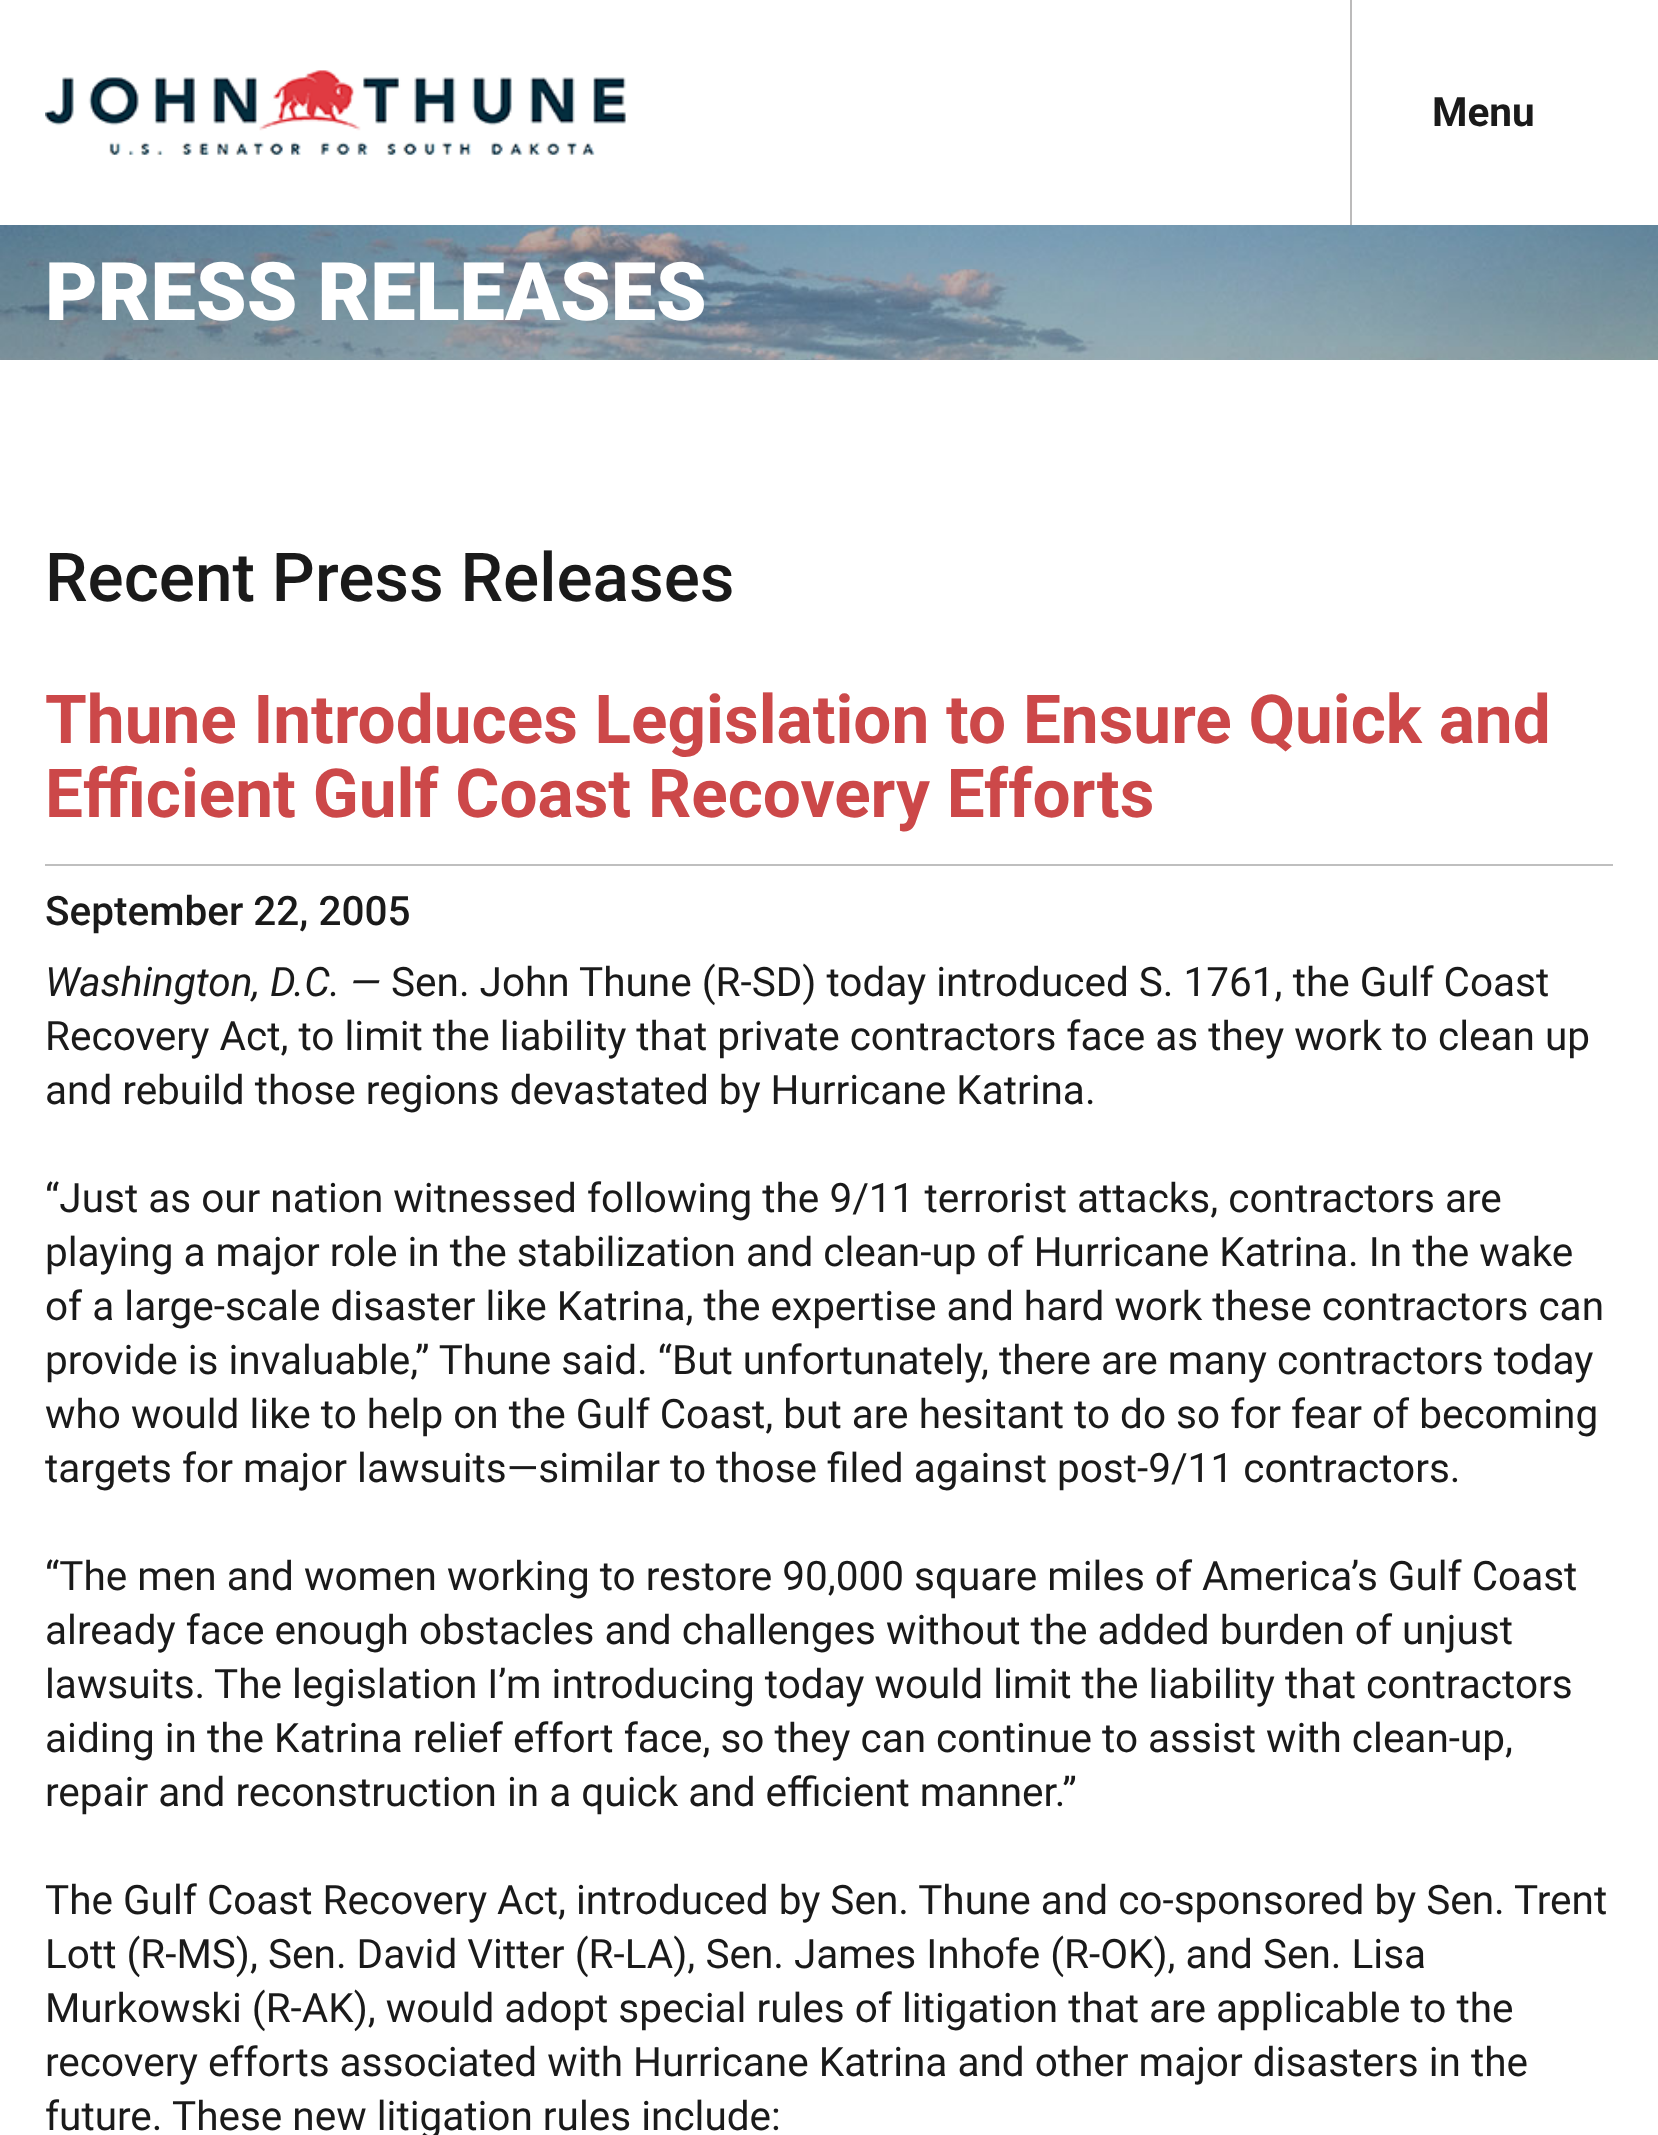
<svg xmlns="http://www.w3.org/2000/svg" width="1658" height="2135">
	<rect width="100%" height="100%" fill="#FFFFFF" />
	<image x="45" y="70" width="581" height="85" href="assets/img1.png" />
	<rect x="1350" y="0" width="2" height="225" fill="#BCBBBB" />
	<text x="1432" y="126" font-family="Roboto" font-size="40.5" font-weight="700" fill="#1A1A1A">Menu</text>
	<image x="0" y="225" width="1658" height="135" href="assets/img2.png" />
	<text x="45" y="320" font-family="Roboto" font-size="81" font-weight="900" fill="#FFFFFF">PRESS RELEASES</text>
	<text x="45" y="601" font-family="Roboto" font-size="67.5" font-weight="500" fill="#1A1A1A">Recent Press Releases</text>
	<rect x="45" y="864" width="1568" height="2" fill="#BFBFBF" />
	<g font-family="Roboto" font-size="67.5" font-weight="700" fill="#CC4849">
		<text x="45" y="743">Thune Introduces Legislation to Ensure Quick and</text>
		<text x="45" y="817">Efficient Gulf Coast Recovery Efforts</text>
	</g>
	<text x="45" y="925" font-family="Roboto" font-size="40.5" font-weight="500" fill="#1A1A1A">September 22, 2005</text>
	<text x="45" y="996" font-family="Roboto" font-size="40.5" font-style="italic" fill="#1A1A1A">Washington, D.C. —</text>
	<g font-family="Roboto" font-size="40.5" fill="#1A1A1A">
		<text x="391" y="996">Sen. John Thune (R-SD) today introduced S. 1761, the Gulf Coast</text>
		<text x="45" y="1050">Recovery Act, to limit the liability that private contractors face as they work to clean up</text>
		<text x="45" y="1104">and rebuild those regions devastated by Hurricane Katrina.</text>
		<text x="45" y="1212">“Just as our nation witnessed following the 9/11 terrorist attacks, contractors are</text>
		<text x="45" y="1266">playing a major role in the stabilization and clean-up of Hurricane Katrina. In the wake</text>
		<text x="45" y="1320">of a large-scale disaster like Katrina, the expertise and hard work these contractors can</text>
		<text x="45" y="1374">provide is invaluable,” Thune said. “But unfortunately, there are many contractors today</text>
		<text x="45" y="1428">who would like to help on the Gulf Coast, but are hesitant to do so for fear of becoming</text>
		<text x="45" y="1482">targets for major lawsuits—similar to those filed against post-9/11 contractors.</text>
		<text x="45" y="1590">“The men and women working to restore 90,000 square miles of America’s Gulf Coast</text>
		<text x="45" y="1644">already face enough obstacles and challenges without the added burden of unjust</text>
		<text x="45" y="1698">lawsuits.</text>
		<text x="214" y="1698">The legislation I’m introducing today would limit the liability that contractors</text>
		<text x="45" y="1752">aiding in the Katrina relief effort face, so they can continue to assist with clean-up,</text>
		<text x="45" y="1806">repair and reconstruction in a quick and efficient manner.”</text>
		<text x="45" y="1914">The Gulf Coast Recovery Act, introduced by Sen. Thune and co-sponsored by Sen. Trent</text>
		<text x="45" y="1968">Lott (R-MS), Sen. David Vitter (R-LA), Sen. James Inhofe (R-OK), and Sen. Lisa</text>
		<text x="45" y="2022">Murkowski (R-AK), would adopt special rules of litigation that are applicable to the</text>
		<text x="45" y="2076">recovery efforts associated with Hurricane Katrina and other major disasters in the</text>
		<text x="45" y="2130">future.</text>
		<text x="172" y="2130">These new litigation rules include:</text>
	</g>
</svg>
